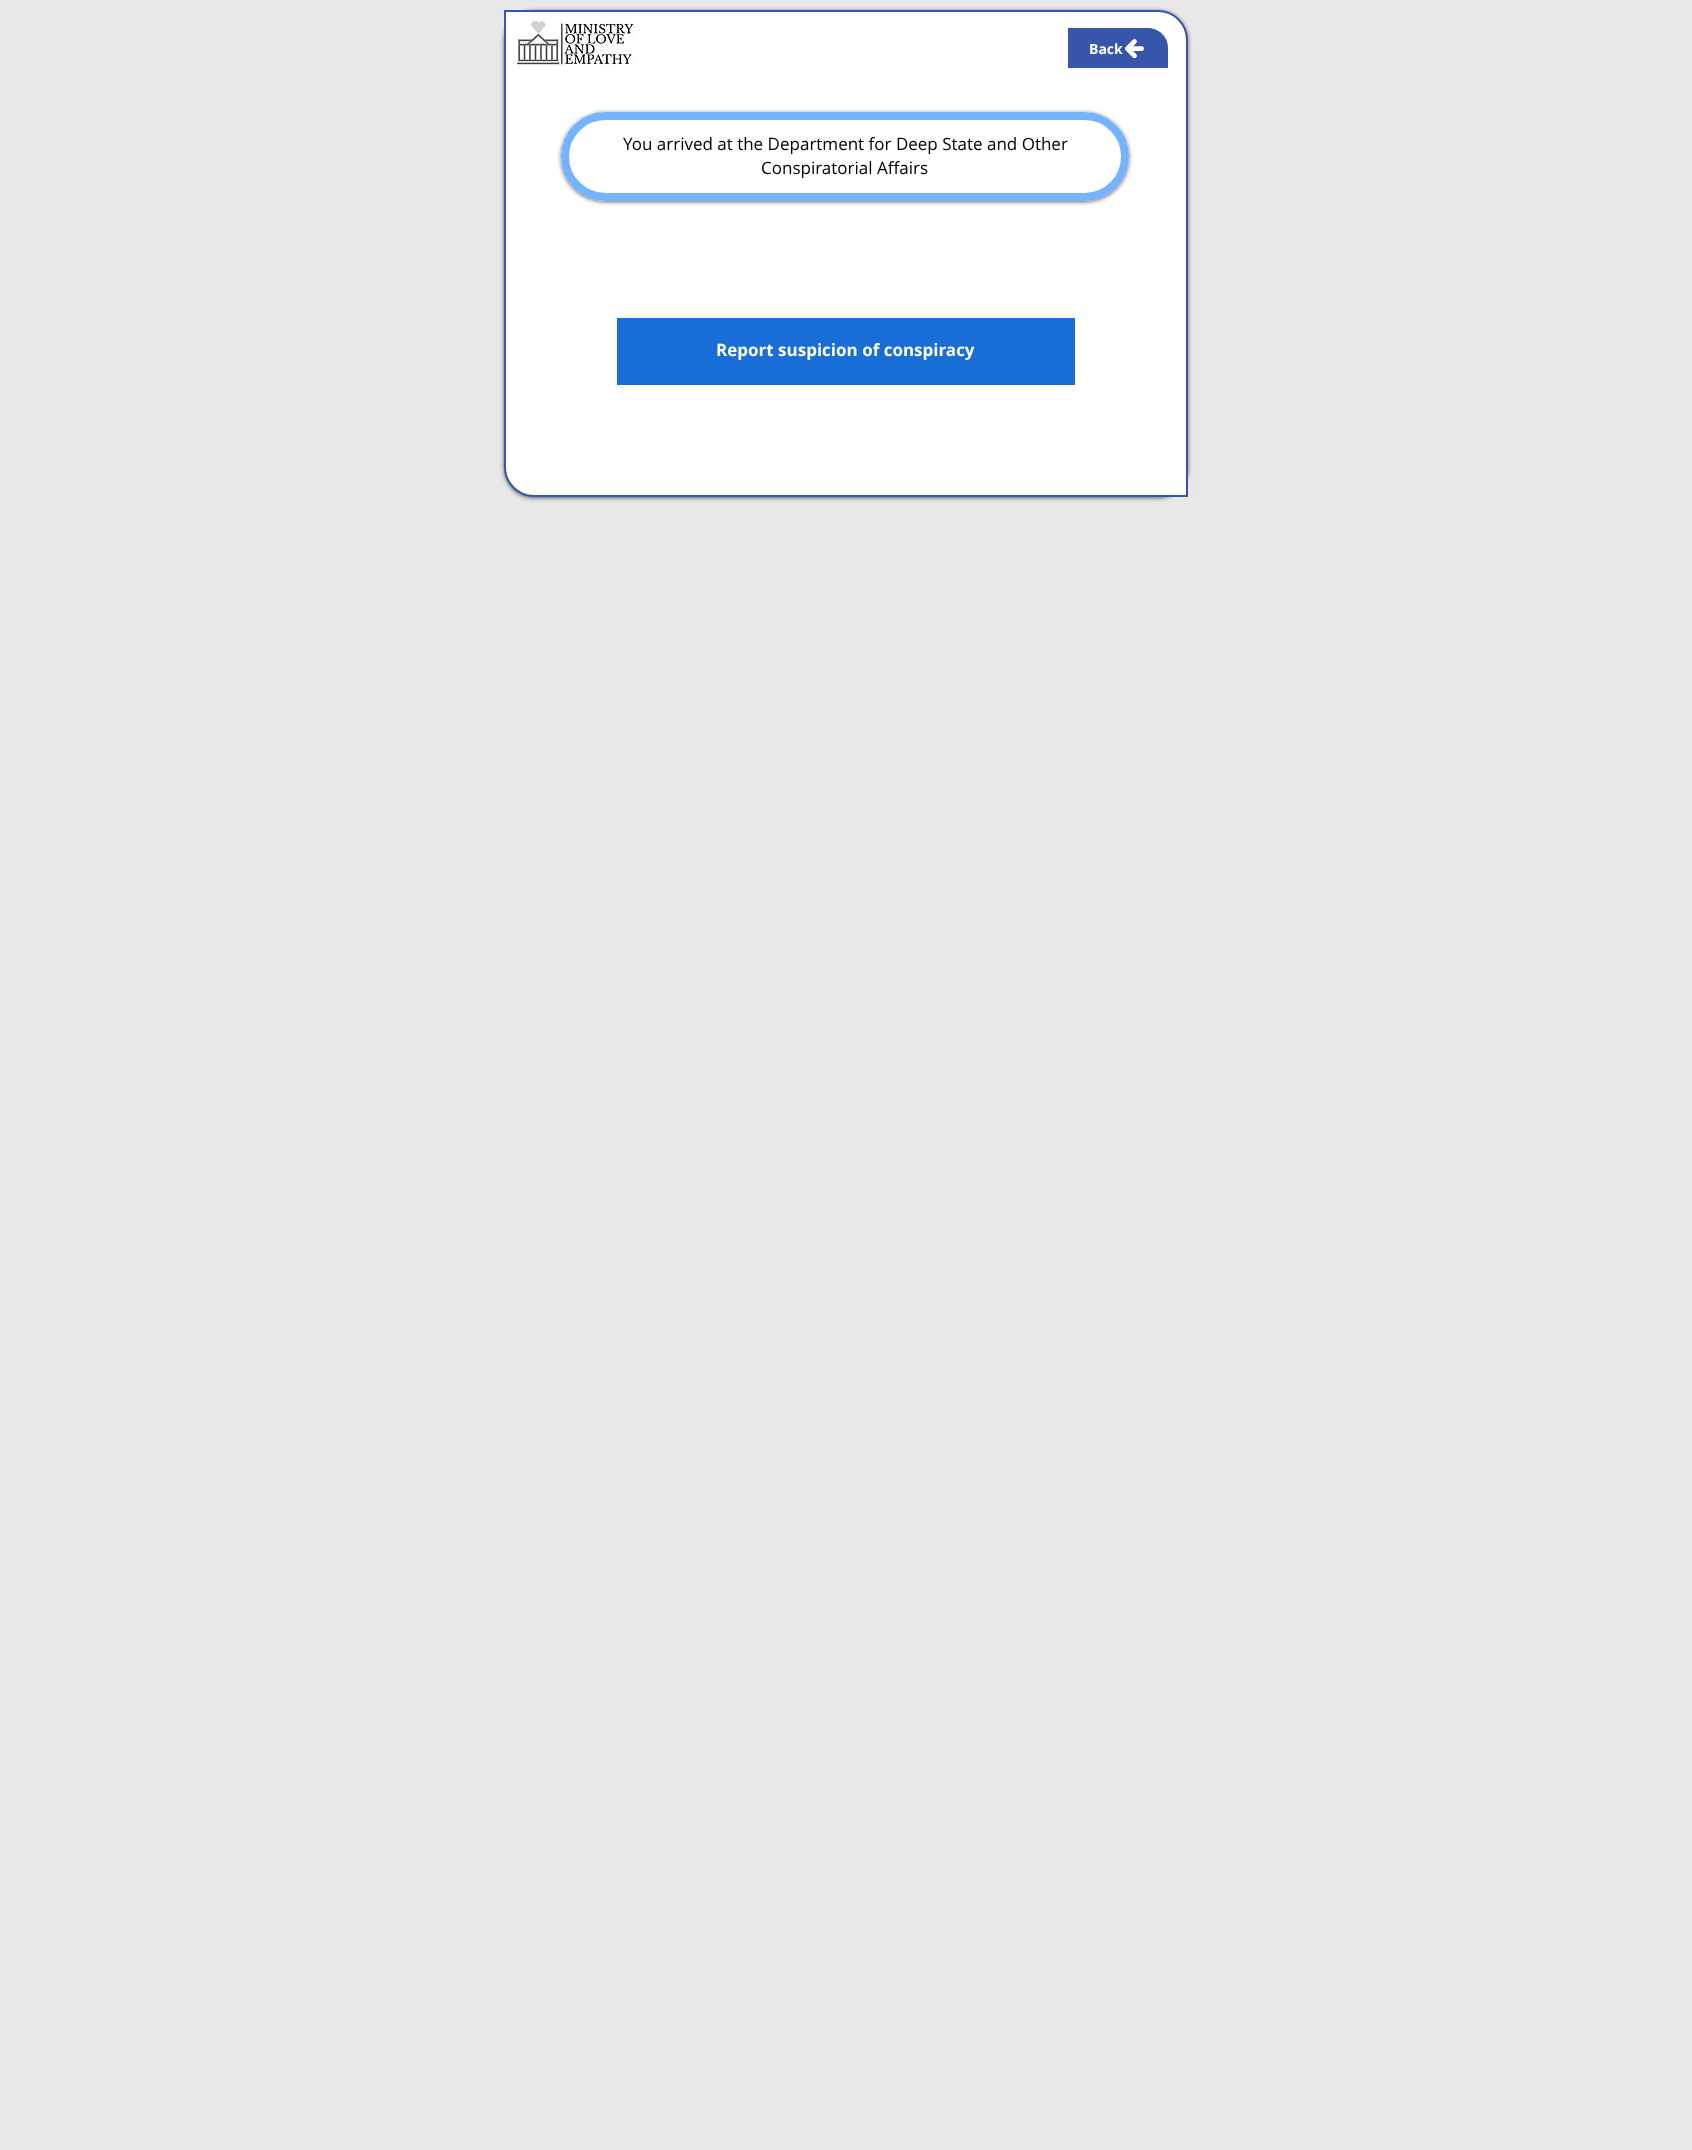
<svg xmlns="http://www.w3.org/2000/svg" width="1692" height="2150">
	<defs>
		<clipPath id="clip1"><path d="M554 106H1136V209H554ZM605.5 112H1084.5C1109 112 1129 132 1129 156.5C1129 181 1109 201 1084.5 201H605.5C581 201 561 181 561 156.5C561 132 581 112 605.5 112Z" clip-rule="evenodd" /></clipPath>
	</defs>
	<rect width="100%" height="100%" fill="#E8E8E8" />
	<rect x="504" y="11" width="684" height="487" rx="30" fill="#000000" fill-opacity="0.6" filter="blur(2px)" />
	<path d="M505 11H1158C1174 11 1187 24 1187 40V496H534C518 496 505 483 505 467Z" fill="#FFFFFF" stroke="#3756AB" stroke-width="2" />
	<image x="515" y="18" width="120" height="48" href="assets/img1.png" />
	<path d="M1068 28H1148C1159 28 1168 37 1168 48V68H1068Z" fill="#3756AB" />
	<text x="1089" y="54" font-family="Open Sans" font-size="14" font-weight="700" fill="#FFFFFF">Back</text>
	<image x="1125" y="39" width="19" height="20" href="assets/img2.png" />
	<g clip-path="url(#clip1)">
		<rect x="561" y="113" width="568" height="89" rx="44.5" fill="#000000" fill-opacity="0.6" filter="blur(2px)" />
	</g>
	<rect x="565" y="116" width="560" height="81" rx="40.5" fill="none" stroke="#74B4FF" stroke-width="8" />
	<g font-family="Open Sans" font-size="17" fill="#000000">
		<text x="623" y="150">You arrived at the Department for Deep State and Other</text>
		<text x="761" y="174">Conspiratorial Affairs</text>
	</g>
	<rect x="617" y="318" width="458" height="67" fill="#196DD7" />
	<text x="716" y="356" font-family="Open Sans" font-size="17" font-weight="700" fill="#FFFFFF">Report suspicion of conspiracy</text>
</svg>
